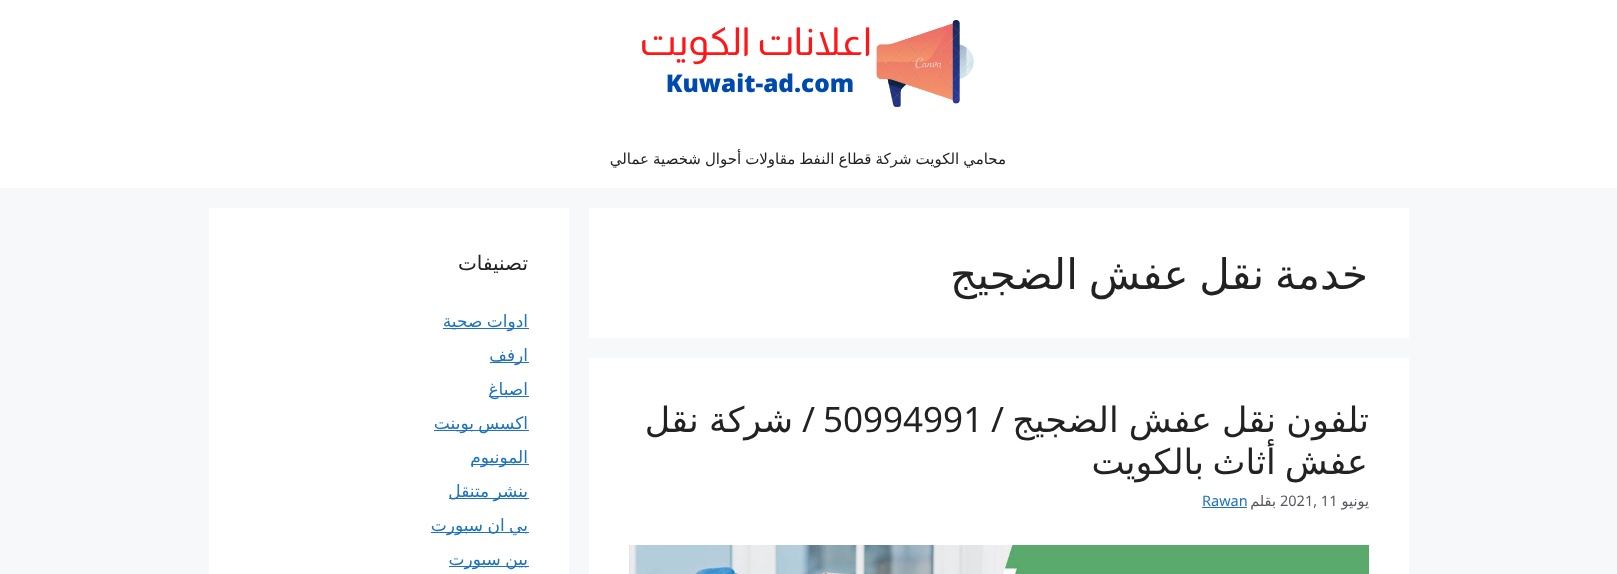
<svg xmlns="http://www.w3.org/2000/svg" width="1617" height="574">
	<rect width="100%" height="100%" fill="#F7F8F9" />
	<rect x="0" y="0" width="1617" height="188" fill="#FFFFFF" />
	<image x="642" y="20" width="332" height="87" href="assets/img1.png" />
	<text x="1006" y="164" word-spacing="-0.75" font-family="DejaVu Sans" font-size="15" direction="rtl" fill="#222222">محامي الكويت شركة قطاع النفط مقاولات أحوال شخصية عمالي</text>
	<rect x="589" y="208" width="820" height="130" fill="#FFFFFF" />
	<text x="1368" y="289" word-spacing="-2.5" font-family="DejaVu Sans" font-size="42" direction="rtl" fill="#222222">خدمة نقل عفش الضجيج</text>
	<rect x="589" y="358" width="820" height="216" fill="#FFFFFF" />
	<text x="1369" y="432" word-spacing="-1" font-family="DejaVu Sans" font-size="35" direction="rtl" fill="#222222">تلفون نقل عفش الضجيج</text>
	<text x="1004" y="432" font-family="Noto Sans" font-size="35" direction="rtl" fill="#222222">/</text>
	<text x="823" y="432" font-family="Noto Sans" font-size="35" fill="#222222">50994991</text>
	<text x="815" y="432" font-family="Noto Sans" font-size="35" direction="rtl" fill="#222222">/</text>
	<g font-family="DejaVu Sans" font-size="35" direction="rtl" fill="#222222">
		<text x="793" y="432" word-spacing="-1">شركة نقل</text>
		<text x="1368" y="474" word-spacing="-2">عفش أثاث</text>
		<text x="1204" y="474">بالكويت</text>
	</g>
	<text x="1369" y="506" font-family="DejaVu Sans" font-size="14.5" direction="rtl" fill="#575760">يونيو</text>
	<text x="1280" y="506" font-family="Noto Sans" font-size="14.5" fill="#575760">2021, 11</text>
	<text x="1276" y="506" font-family="DejaVu Sans" font-size="14.5" direction="rtl" fill="#575760">بقلم</text>
	<text x="1202" y="506" font-family="Noto Sans" font-size="14.5" fill="#1E73BE">Rawan</text>
	<rect x="1202" y="507" width="45" height="1" fill="#1E73BE" />
	<image x="629" y="545" width="740" height="29" href="assets/img2.png" />
	<rect x="209" y="208" width="360" height="366" fill="#FFFFFF" />
	<text x="528" y="270" font-family="DejaVu Sans" font-size="20" direction="rtl" fill="#222222">تصنيفات</text>
	<rect x="443" y="328" width="86" height="1" fill="#1E73BE" />
	<text x="528" y="327" word-spacing="-1" font-family="DejaVu Sans" font-size="17" direction="rtl" fill="#1E73BE">ادوات صحية</text>
	<rect x="490" y="362" width="39" height="1" fill="#1E73BE" />
	<text x="528" y="361" font-family="DejaVu Sans" font-size="17" direction="rtl" fill="#1E73BE">ارفف</text>
	<rect x="489" y="396" width="40" height="1" fill="#1E73BE" />
	<text x="528" y="395" font-family="DejaVu Sans" font-size="17" direction="rtl" fill="#1E73BE">اصباغ</text>
	<rect x="434" y="430" width="95" height="1" fill="#1E73BE" />
	<text x="528" y="429" word-spacing="-1" font-family="DejaVu Sans" font-size="17" direction="rtl" fill="#1E73BE">اكسس بوينت</text>
	<rect x="471" y="464" width="58" height="1" fill="#1E73BE" />
	<text x="528" y="463" font-family="DejaVu Sans" font-size="17" direction="rtl" fill="#1E73BE">المونيوم</text>
	<rect x="449" y="498" width="80" height="1" fill="#1E73BE" />
	<text x="528" y="497" word-spacing="-1" font-family="DejaVu Sans" font-size="17" direction="rtl" fill="#1E73BE">بنشر متنقل</text>
	<rect x="431" y="532" width="98" height="1" fill="#1E73BE" />
	<text x="528" y="531" word-spacing="-1" font-family="DejaVu Sans" font-size="17" direction="rtl" fill="#1E73BE">بي ان سبورت</text>
	<rect x="449" y="566" width="80" height="1" fill="#1E73BE" />
	<text x="528" y="565" word-spacing="-1" font-family="DejaVu Sans" font-size="17" direction="rtl" fill="#1E73BE">بين سبورت</text>
</svg>
